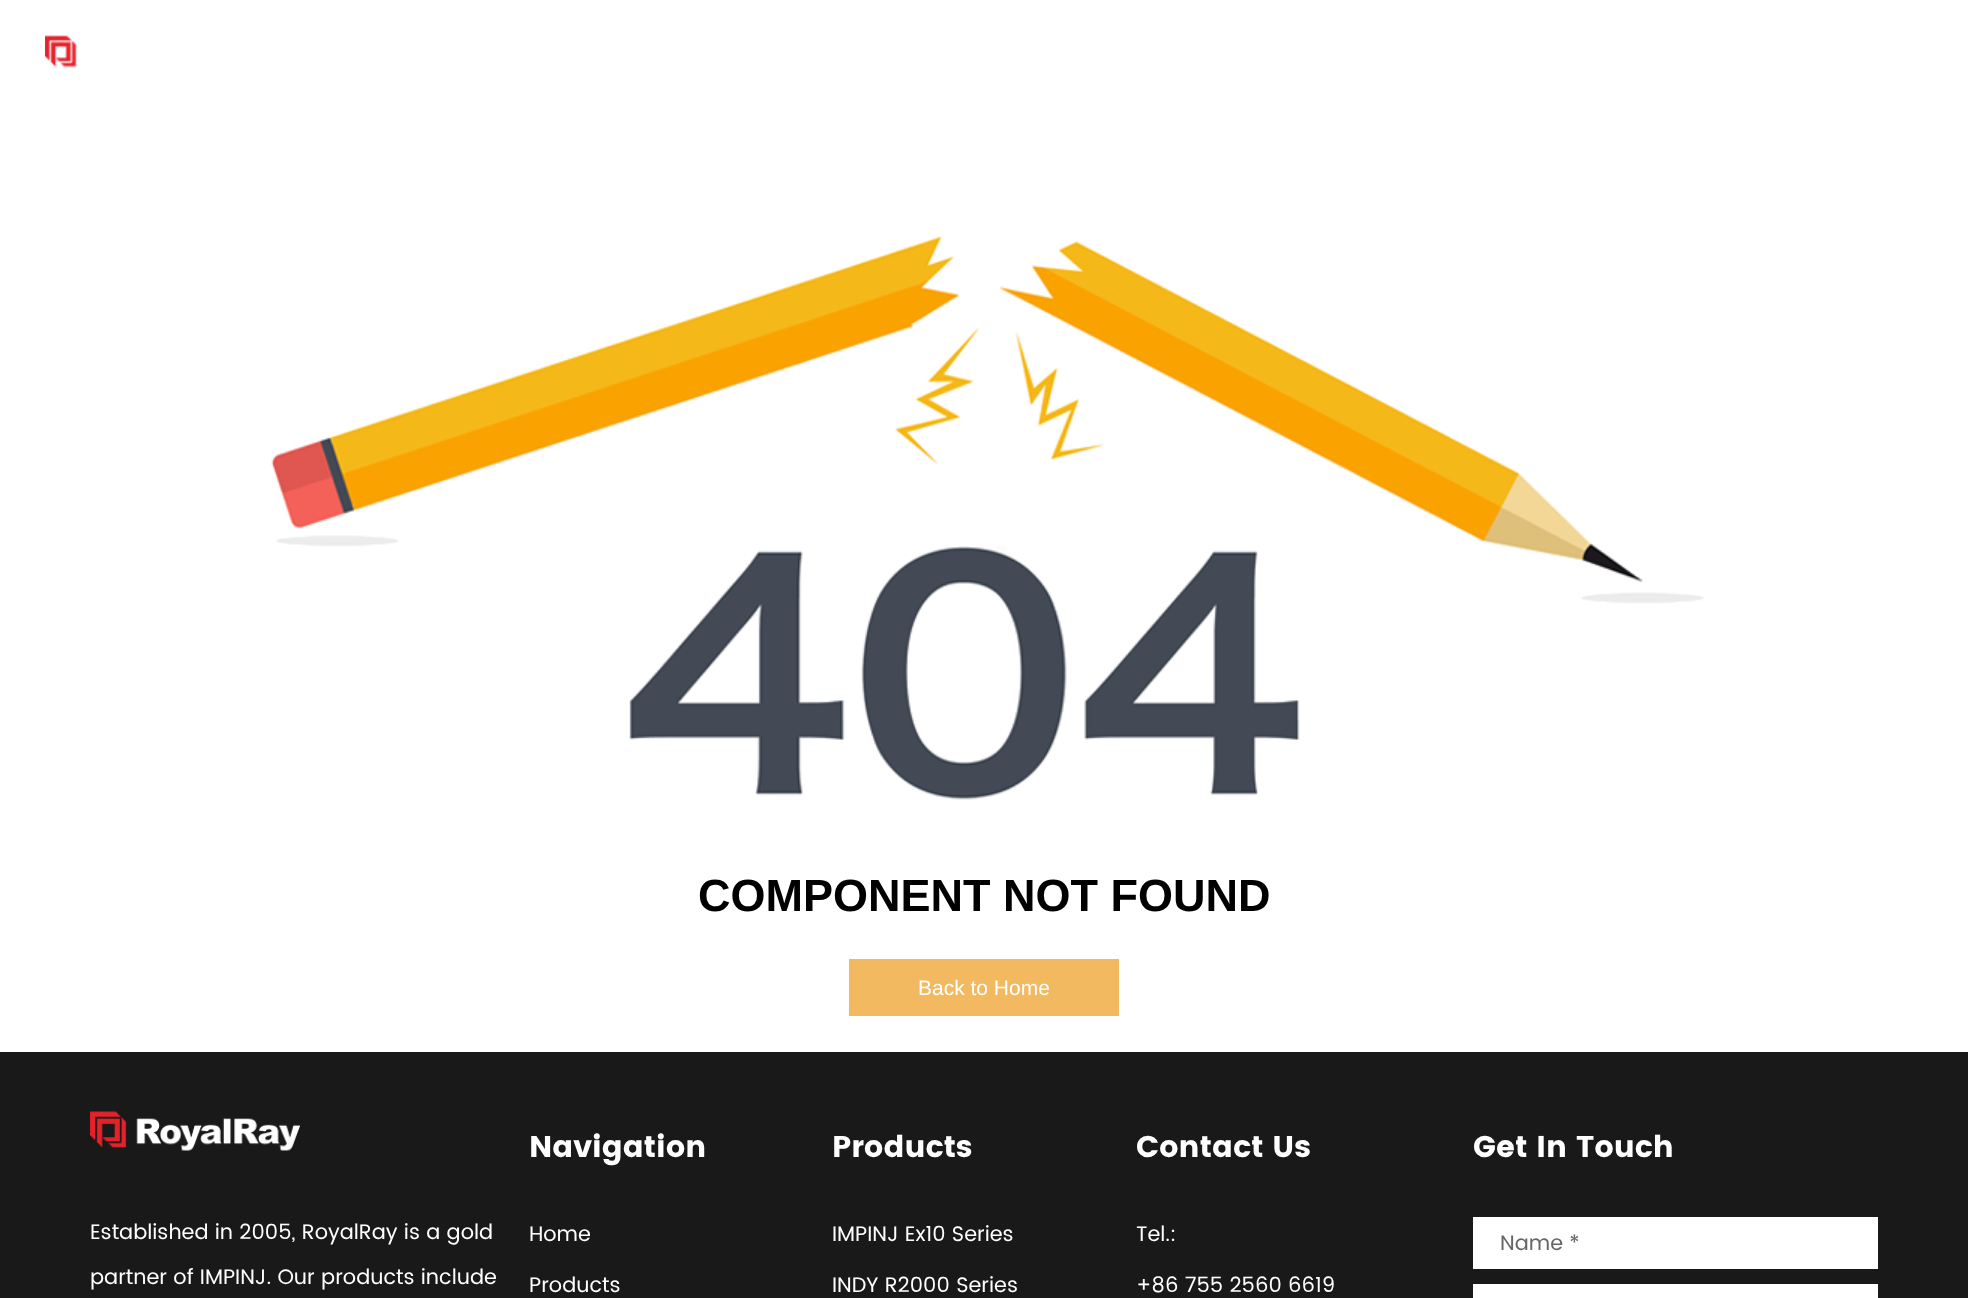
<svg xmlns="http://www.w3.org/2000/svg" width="1968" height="1298">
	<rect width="100%" height="100%" fill="#FFFFFF" />
	<image x="45" y="35" width="32" height="33" href="assets/img1.png" />
	<image x="271" y="235" width="1433" height="565" href="assets/img2.png" />
	<text x="698" y="911" font-family="Liberation Sans" font-size="45" font-weight="700" fill="#000000">COMPONENT NOT FOUND</text>
	<rect x="849" y="959" width="270" height="57" fill="#F2B961" />
	<text x="918" y="995" font-family="Liberation Sans" font-size="21" fill="#FFFFFF">Back to Home</text>
	<rect x="0" y="1052" width="1968" height="246" fill="#191919" />
	<image x="90" y="1111" width="210" height="40" href="assets/img3.png" />
	<g font-family="Poppins" font-size="21" fill="#FFFFFF">
		<text x="90" y="1239">Established in 2005, RoyalRay is a gold</text>
		<text x="90" y="1284">partner of IMPINJ. Our products include</text>
	</g>
	<text x="529" y="1157" font-family="Poppins" font-size="30" font-weight="700" fill="#FFFFFF">Navigation</text>
	<g font-family="Poppins" font-size="21" fill="#FFFFFF">
		<text x="529" y="1241">Home</text>
		<text x="529" y="1292">Products</text>
	</g>
	<text x="832" y="1157" font-family="Poppins" font-size="30" font-weight="700" fill="#FFFFFF">Products</text>
	<g font-family="Poppins" font-size="21" fill="#FFFFFF">
		<text x="832" y="1241">IMPINJ Ex10 Series</text>
		<text x="832" y="1292">INDY R2000 Series</text>
	</g>
	<text x="1136" y="1157" font-family="Poppins" font-size="30" font-weight="700" fill="#FFFFFF">Contact Us</text>
	<g font-family="Poppins" font-size="21" fill="#FFFFFF">
		<text x="1136" y="1241">Tel.:</text>
		<text x="1136" y="1292">+86 755 2560 6619</text>
	</g>
	<text x="1473" y="1157" font-family="Poppins" font-size="30" font-weight="700" fill="#FFFFFF">Get In Touch</text>
	<rect x="1473" y="1217" width="405" height="52" fill="#FFFFFF" />
	<text x="1500" y="1250" font-family="Poppins" font-size="21" fill="#666666">Name *</text>
	<rect x="1473" y="1284" width="405" height="14" fill="#FFFFFF" />
</svg>
